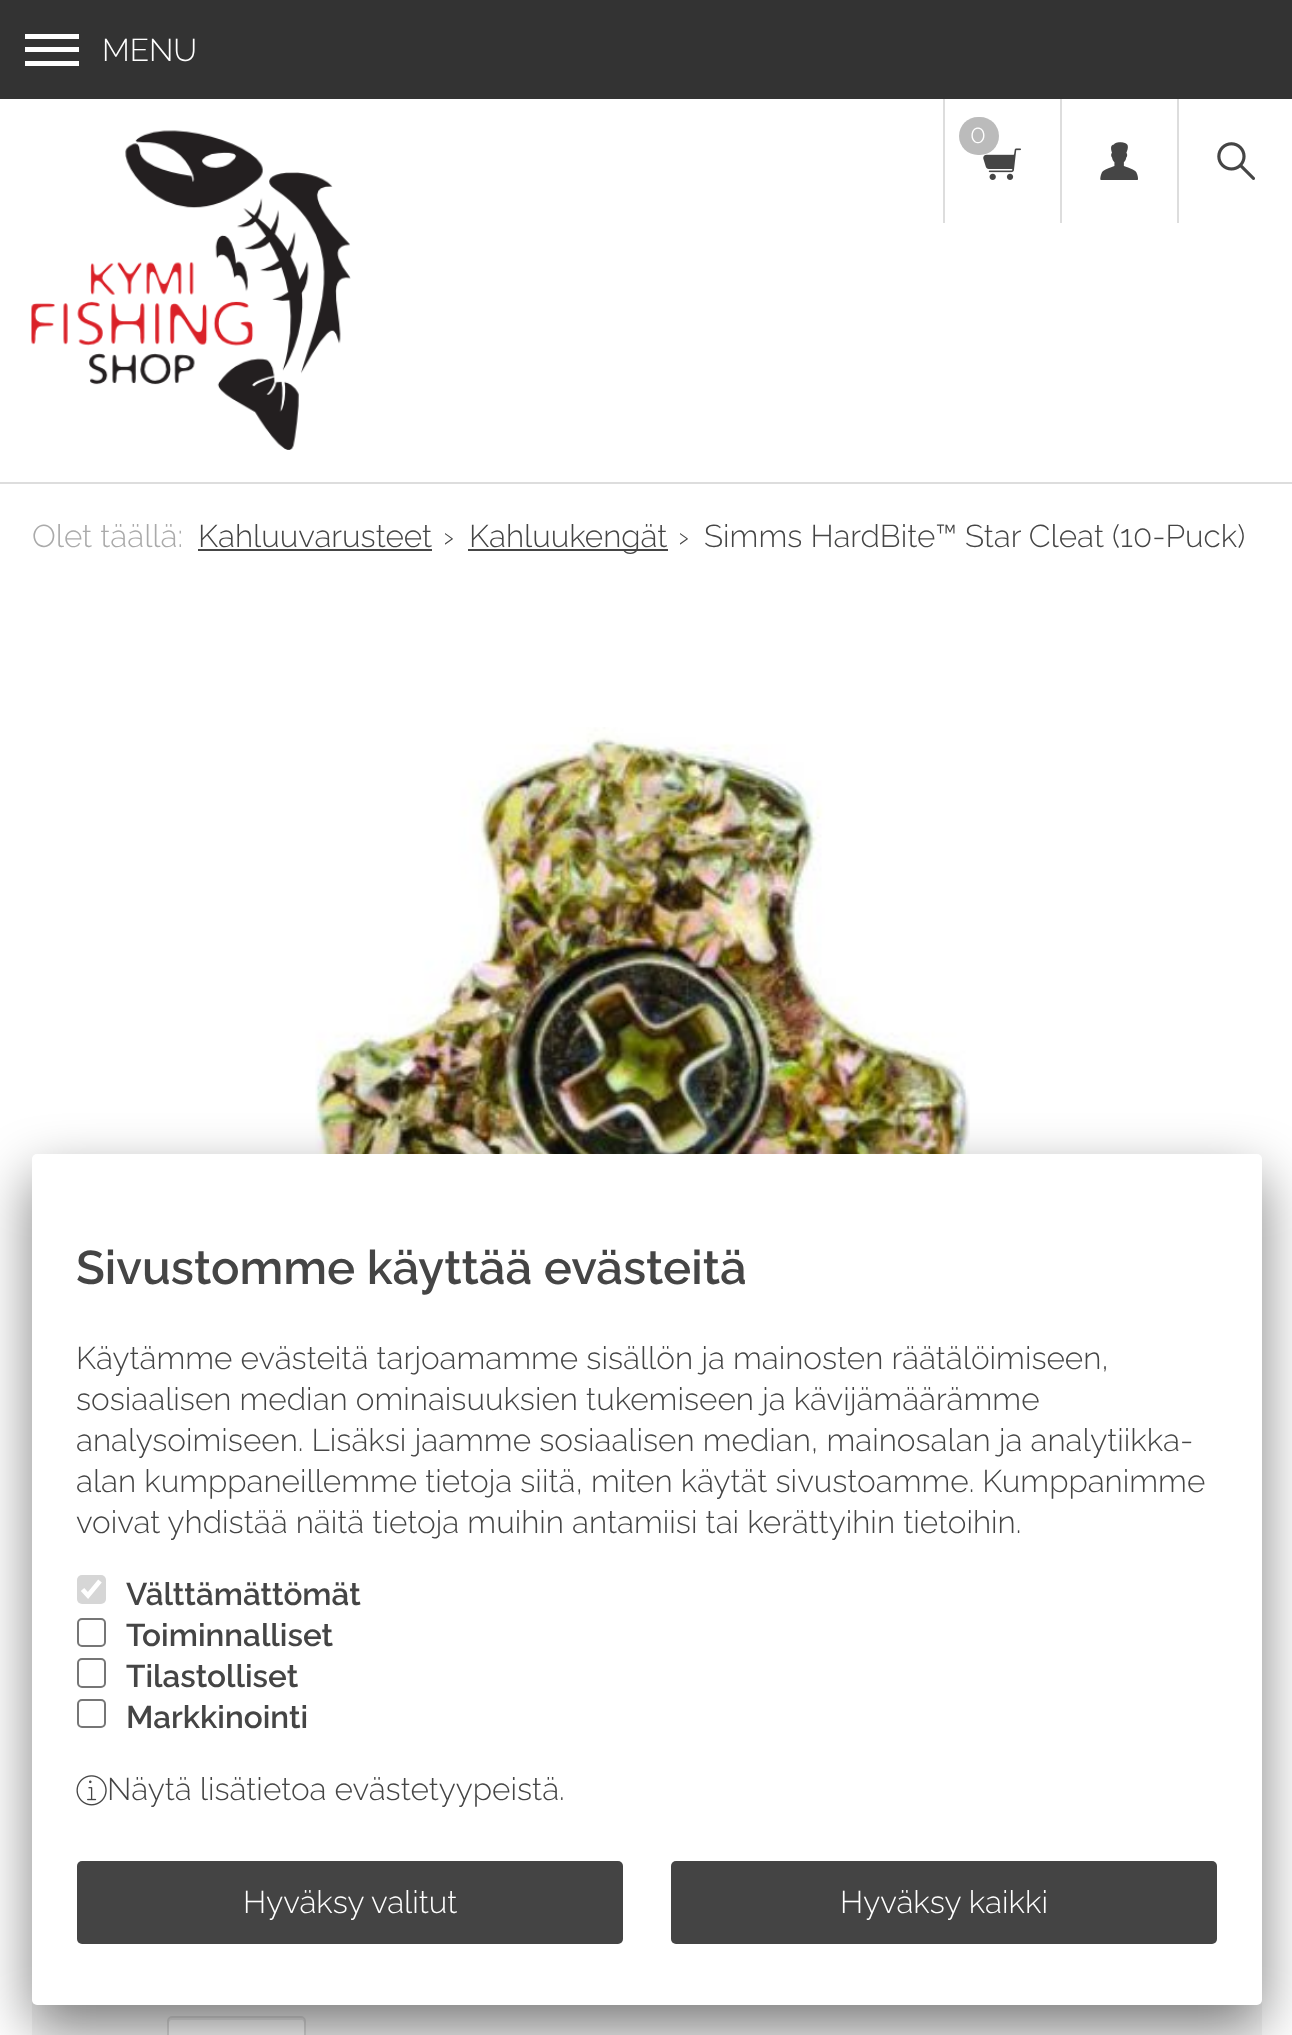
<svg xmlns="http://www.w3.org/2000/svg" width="1292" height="2035">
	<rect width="100%" height="100%" fill="#FFFFFF" />
	<rect x="0" y="0" width="1292" height="99" fill="#333333" />
	<rect x="25" y="34" width="54" height="5" fill="#FFFFFF" />
	<rect x="25" y="47" width="54" height="5" fill="#FFFFFF" />
	<rect x="25" y="61" width="54" height="5" fill="#FFFFFF" />
	<text x="102" y="61" font-family="Raleway" font-size="31.5" font-weight="300" fill="#FFFFFF">MENU</text>
	<rect x="0" y="482" width="1292" height="2" fill="#DDDDDD" />
	<image x="31" y="130" width="320" height="320" href="assets/img1.png" />
	<rect x="943" y="99" width="2" height="124" fill="#DDDDDD" />
	<image x="983" y="148" width="38" height="32" href="assets/img2.png" />
	<rect x="959" y="117" width="40" height="38" rx="19" fill="#BBBBBB" />
	<text x="970" y="143" font-family="Raleway" font-size="26" font-weight="300" fill="#FFFFFF">0</text>
	<rect x="1060" y="99" width="2" height="124" fill="#DDDDDD" />
	<image x="1100" y="142" width="38" height="38" href="assets/img3.png" />
	<rect x="1177" y="99" width="2" height="124" fill="#DDDDDD" />
	<image x="1217" y="142" width="38" height="38" href="assets/img4.png" />
	<text x="32" y="547" font-family="Raleway" font-size="31.5" font-weight="300" fill="#AAAAAA">Olet täällä:</text>
	<text x="198" y="547" font-family="Raleway" font-size="31.5" font-weight="300" fill="#454545">Kahluuvarusteet</text>
	<rect x="198" y="549" width="234" height="2" fill="#454545" />
	<text x="443" y="547" font-family="Raleway" font-size="31.5" font-weight="300" fill="#454545">›</text>
	<rect x="468" y="549" width="200" height="2" fill="#454545" />
	<g font-family="Raleway" font-size="31.5" font-weight="300" fill="#454545">
		<text x="469" y="547">Kahluukengät</text>
		<text x="678" y="547">›</text>
		<text x="704" y="547">Simms HardBite™ Star Cleat (10-Puck)</text>
	</g>
	<image x="315" y="727" width="655" height="427" href="assets/img5.png" />
	<rect x="32" y="2000" width="1230" height="35" fill="#F5F5F5" />
	<rect x="167" y="2016" width="139" height="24" rx="5" fill="#FFFFFF" />
	<path d="M171 2020H302C303 2020 304 2022 304 2023V2020C304 2019 303 2018 302 2018H171C170 2018 169 2019 169 2020V2023C169 2022 170 2020 171 2020Z" fill="#ECECEC" />
	<rect x="168" y="2017" width="137" height="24" rx="4" fill="none" stroke="#DDDDDD" stroke-width="2" />
	<rect x="32" y="1177" width="1230" height="850" rx="5" fill="#000000" fill-opacity="0.5" filter="blur(28px)" />
	<rect x="32" y="1154" width="1230" height="851" rx="5" fill="#FFFFFF" />
	<text x="76" y="1284" font-family="Raleway" font-size="47.25" font-weight="600" fill="#454545">Sivustomme käyttää evästeitä</text>
	<g font-family="Raleway" font-size="31.5" font-weight="300" fill="#454545">
		<text x="76" y="1369">Käytämme evästeitä tarjoamamme sisällön ja mainosten räätälöimiseen,</text>
		<text x="76" y="1410">sosiaalisen median ominaisuuksien tukemiseen ja kävijämäärämme</text>
		<text x="76" y="1451">analysoimiseen. Lisäksi jaamme sosiaalisen median, mainosalan ja analytiikka-</text>
		<text x="76" y="1492">alan kumppaneillemme tietoja siitä, miten käytät sivustoamme. Kumppanimme</text>
		<text x="76" y="1533">voivat yhdistää näitä tietoja muihin antamiisi tai kerättyihin tietoihin.</text>
	</g>
	<rect x="77" y="1575" width="29" height="29" rx="5" fill="#D6D6D6" />
	<path d="M82.5 1589.5L88 1595.5L100 1581" fill="none" stroke="#FFFFFF" stroke-width="4.7" />
	<text x="126" y="1605" font-family="Raleway" font-size="31.5" font-weight="600" fill="#454545">Välttämättömät</text>
	<rect x="78" y="1619" width="27" height="27" rx="4" fill="none" stroke="#767676" stroke-width="2" />
	<text x="126" y="1646" font-family="Raleway" font-size="31.5" font-weight="600" fill="#454545">Toiminnalliset</text>
	<rect x="78" y="1659" width="27" height="28" rx="4" fill="none" stroke="#767676" stroke-width="2" />
	<text x="126" y="1687" font-family="Raleway" font-size="31.5" font-weight="600" fill="#454545">Tilastolliset</text>
	<rect x="78" y="1700" width="27" height="27" rx="4" fill="none" stroke="#767676" stroke-width="2" />
	<text x="126" y="1728" font-family="Raleway" font-size="31.5" font-weight="600" fill="#454545">Markkinointi</text>
	<image x="76" y="1775" width="31" height="31" href="assets/img6.png" />
	<text x="107" y="1800" font-family="Raleway" font-size="31.5" font-weight="300" fill="#454545">Näytä lisätietoa evästetyypeistä.</text>
	<rect x="77" y="1861" width="546" height="83" rx="5" fill="#444444" />
	<text x="243" y="1913" font-family="Raleway" font-size="31.5" font-weight="300" fill="#FFFFFF">Hyväksy valitut</text>
	<rect x="671" y="1861" width="546" height="83" rx="5" fill="#444444" />
	<text x="840" y="1913" font-family="Raleway" font-size="31.5" font-weight="300" fill="#FFFFFF">Hyväksy kaikki</text>
</svg>
